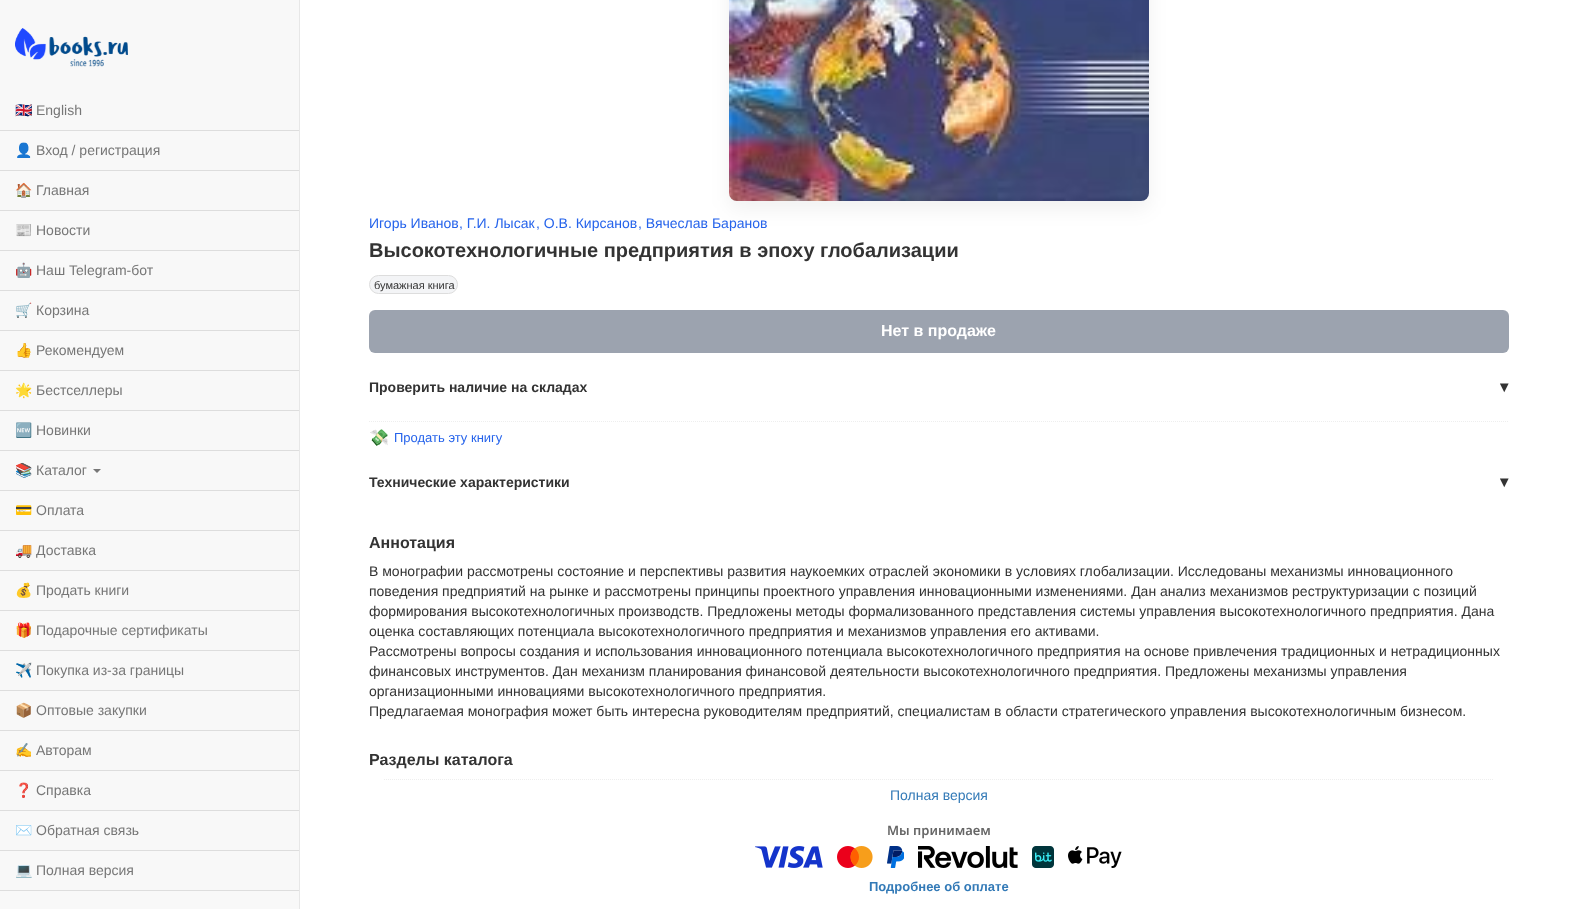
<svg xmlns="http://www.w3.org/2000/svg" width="1577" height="909">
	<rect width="100%" height="100%" fill="#FFFFFF" />
	<rect x="0" y="0" width="299" height="909" fill="#F8F8F8" />
	<rect x="299" y="0" width="1" height="909" fill="#E7E7E7" />
	<image x="15" y="28" width="113" height="39" href="assets/img1.png" />
	<rect x="0" y="130" width="299" height="1" fill="#DDDDDD" />
	<text x="15" y="115" font-family="Noto Color Emoji" font-size="14" fill="#777777">🇬🇧</text>
	<text x="36" y="115" font-family="Liberation Sans" font-size="14" fill="#777777">English</text>
	<rect x="0" y="170" width="299" height="1" fill="#DDDDDD" />
	<text x="15" y="155" font-family="Noto Color Emoji" font-size="14" fill="#777777">👤</text>
	<text x="36" y="155" font-family="Liberation Sans" font-size="14" fill="#777777">Вход / регистрация</text>
	<rect x="0" y="210" width="299" height="1" fill="#DDDDDD" />
	<text x="15" y="195" font-family="Noto Color Emoji" font-size="14" fill="#777777">🏠</text>
	<text x="36" y="195" font-family="Liberation Sans" font-size="14" fill="#777777">Главная</text>
	<rect x="0" y="250" width="299" height="1" fill="#DDDDDD" />
	<text x="15" y="235" font-family="Noto Color Emoji" font-size="14" fill="#777777">📰</text>
	<text x="36" y="235" font-family="Liberation Sans" font-size="14" fill="#777777">Новости</text>
	<rect x="0" y="290" width="299" height="1" fill="#DDDDDD" />
	<text x="15" y="275" font-family="Noto Color Emoji" font-size="14" fill="#777777">🤖</text>
	<text x="36" y="275" font-family="Liberation Sans" font-size="14" fill="#777777">Наш Telegram-бот</text>
	<rect x="0" y="330" width="299" height="1" fill="#DDDDDD" />
	<text x="15" y="315" font-family="Noto Color Emoji" font-size="14" fill="#777777">🛒</text>
	<text x="36" y="315" font-family="Liberation Sans" font-size="14" fill="#777777">Корзина</text>
	<rect x="0" y="370" width="299" height="1" fill="#DDDDDD" />
	<text x="15" y="355" font-family="Noto Color Emoji" font-size="14" fill="#777777">👍</text>
	<text x="36" y="355" font-family="Liberation Sans" font-size="14" fill="#777777">Рекомендуем</text>
	<rect x="0" y="410" width="299" height="1" fill="#DDDDDD" />
	<text x="15" y="395" font-family="Noto Color Emoji" font-size="14" fill="#777777">🌟</text>
	<text x="36" y="395" font-family="Liberation Sans" font-size="14" fill="#777777">Бестселлеры</text>
	<rect x="0" y="450" width="299" height="1" fill="#DDDDDD" />
	<text x="15" y="435" font-family="Noto Color Emoji" font-size="14" fill="#777777">🆕</text>
	<text x="36" y="435" font-family="Liberation Sans" font-size="14" fill="#777777">Новинки</text>
	<rect x="0" y="490" width="299" height="1" fill="#DDDDDD" />
	<text x="15" y="475" font-family="Noto Color Emoji" font-size="14" fill="#777777">📚</text>
	<text x="36" y="475" font-family="Liberation Sans" font-size="14" fill="#777777">Каталог</text>
	<path d="M93 469H101L97 473Z" fill="#777777" />
	<rect x="0" y="530" width="299" height="1" fill="#DDDDDD" />
	<text x="15" y="515" font-family="Noto Color Emoji" font-size="14" fill="#777777">💳</text>
	<text x="36" y="515" font-family="Liberation Sans" font-size="14" fill="#777777">Оплата</text>
	<rect x="0" y="570" width="299" height="1" fill="#DDDDDD" />
	<text x="15" y="555" font-family="Noto Color Emoji" font-size="14" fill="#777777">🚚</text>
	<text x="36" y="555" font-family="Liberation Sans" font-size="14" fill="#777777">Доставка</text>
	<rect x="0" y="610" width="299" height="1" fill="#DDDDDD" />
	<text x="15" y="595" font-family="Noto Color Emoji" font-size="14" fill="#777777">💰</text>
	<text x="36" y="595" font-family="Liberation Sans" font-size="14" fill="#777777">Продать книги</text>
	<rect x="0" y="650" width="299" height="1" fill="#DDDDDD" />
	<text x="15" y="635" font-family="Noto Color Emoji" font-size="14" fill="#777777">🎁</text>
	<text x="36" y="635" font-family="Liberation Sans" font-size="14" fill="#777777">Подарочные сертификаты</text>
	<rect x="0" y="690" width="299" height="1" fill="#DDDDDD" />
	<text x="15" y="675" font-family="Noto Color Emoji" font-size="14" fill="#777777">✈️</text>
	<text x="36" y="675" font-family="Liberation Sans" font-size="14" fill="#777777">Покупка из-за границы</text>
	<rect x="0" y="730" width="299" height="1" fill="#DDDDDD" />
	<text x="15" y="715" font-family="Noto Color Emoji" font-size="14" fill="#777777">📦</text>
	<text x="36" y="715" font-family="Liberation Sans" font-size="14" fill="#777777">Оптовые закупки</text>
	<rect x="0" y="770" width="299" height="1" fill="#DDDDDD" />
	<text x="15" y="755" font-family="Noto Color Emoji" font-size="14" fill="#777777">✍️</text>
	<text x="36" y="755" font-family="Liberation Sans" font-size="14" fill="#777777">Авторам</text>
	<rect x="0" y="810" width="299" height="1" fill="#DDDDDD" />
	<text x="15" y="795" font-family="Noto Color Emoji" font-size="14" fill="#777777">❓</text>
	<text x="36" y="795" font-family="Liberation Sans" font-size="14" fill="#777777">Справка</text>
	<rect x="0" y="850" width="299" height="1" fill="#DDDDDD" />
	<text x="15" y="835" font-family="Noto Color Emoji" font-size="14" fill="#777777">✉️</text>
	<text x="36" y="835" font-family="Liberation Sans" font-size="14" fill="#777777">Обратная связь</text>
	<rect x="0" y="890" width="299" height="1" fill="#DDDDDD" />
	<text x="15" y="875" font-family="Noto Color Emoji" font-size="14" fill="#777777">💻</text>
	<text x="36" y="875" font-family="Liberation Sans" font-size="14" fill="#777777">Полная версия</text>
	<g font-family="Liberation Sans" font-size="14" fill="#2563EB">
		<text x="369" y="228">Игорь Иванов</text>
		<text x="459" y="228">, Г.И. Лысак</text>
		<text x="536" y="228">, О.В. Кирсанов</text>
	</g>
	<rect x="729" y="-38" width="420" height="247" rx="8" fill="#000000" fill-opacity="0.06" filter="blur(10px)" />
	<text x="638" y="228" font-family="Liberation Sans" font-size="14" fill="#2563EB">, Вячеслав Баранов</text>
	<image x="729" y="0" width="420" height="201" href="assets/img2.png" />
	<text x="369" y="257" font-family="Liberation Sans" font-size="20" font-weight="700" fill="#333333">Высокотехнологичные предприятия в эпоху глобализации</text>
	<rect x="369.5" y="275.5" width="88" height="18" rx="9" fill="#F3F4F6" stroke="#DDDDDD" />
	<text x="374" y="289" font-family="Liberation Sans" font-size="11" fill="#333333">бумажная книга</text>
	<rect x="369" y="310" width="1140" height="43" rx="6" fill="#9CA3AF" />
	<text x="881" y="336" font-family="Liberation Sans" font-size="16" font-weight="700" fill="#FFFFFF">Нет в продаже</text>
	<text x="369" y="392" font-family="Liberation Sans" font-size="14" font-weight="700" fill="#333333">Проверить наличие на складах</text>
	<text x="1500" y="392" font-family="DejaVu Sans" font-size="16" font-weight="700" fill="#333333">▾</text>
	<path d="M369 421.5H1509" fill="none" stroke="#EEEEEE" stroke-dasharray="1 1" />
	<text x="369" y="443" font-family="Noto Color Emoji" font-size="16" fill="#2563EB">💸</text>
	<text x="394" y="442" font-family="Liberation Sans" font-size="13" fill="#2563EB">Продать эту книгу</text>
	<text x="369" y="487" font-family="Liberation Sans" font-size="14" font-weight="700" fill="#333333">Технические характеристики</text>
	<text x="1500" y="487" font-family="DejaVu Sans" font-size="16" font-weight="700" fill="#333333">▾</text>
	<text x="369" y="548" font-family="Liberation Sans" font-size="16" font-weight="700" fill="#333333">Аннотация</text>
	<g font-family="Liberation Sans" font-size="14" fill="#333333">
		<text x="369" y="576">В монографии рассмотрены состояние и перспективы развития наукоемких отраслей экономики в условиях глобализации. Исследованы механизмы инновационного</text>
		<text x="369" y="596">поведения предприятий на рынке и рассмотрены принципы проектного управления инновационными изменениями. Дан анализ механизмов реструктуризации с позиций</text>
		<text x="369" y="616">формирования высокотехнологичных производств. Предложены методы формализованного представления системы управления высокотехнологичного предприятия. Дана</text>
		<text x="369" y="636">оценка составляющих потенциала высокотехнологичного предприятия и механизмов управления его активами.</text>
		<text x="369" y="656">Рассмотрены вопросы создания и использования инновационного потенциала высокотехнологичного предприятия на основе привлечения традиционных и нетрадиционных</text>
		<text x="369" y="676">финансовых инструментов. Дан механизм планирования финансовой деятельности высокотехнологичного предприятия. Предложены механизмы управления</text>
		<text x="369" y="696">организационными инновациями высокотехнологичного предприятия.</text>
		<text x="369" y="716">Предлагаемая монография может быть интересна руководителям предприятий, специалистам в области стратегического управления высокотехнологичным бизнесом.</text>
	</g>
	<text x="369" y="765" font-family="Liberation Sans" font-size="16" font-weight="700" fill="#333333">Разделы каталога</text>
	<path d="M384 779.5H1494" fill="none" stroke="#EEEEEE" stroke-dasharray="1 1" />
	<text x="890" y="800" font-family="Liberation Sans" font-size="14" fill="#337AB7">Полная версия</text>
	<text x="887" y="835" font-family="Noto Sans" font-size="13" font-weight="600" fill="#666666">Мы принимаем</text>
	<image x="755" y="846" width="68" height="22" href="assets/img3.png" />
	<image x="837" y="846" width="36" height="22" href="assets/img4.png" />
	<image x="887" y="846" width="17" height="22" href="assets/img5.png" />
	<image x="918" y="846" width="100" height="22" href="assets/img6.png" />
	<image x="1032" y="846" width="22" height="22" href="assets/img7.png" />
	<image x="1068" y="846" width="54" height="22" href="assets/img8.png" />
	<text x="869" y="891" font-family="Liberation Sans" font-size="13" font-weight="700" fill="#337AB7">Подробнее об оплате</text>
</svg>
